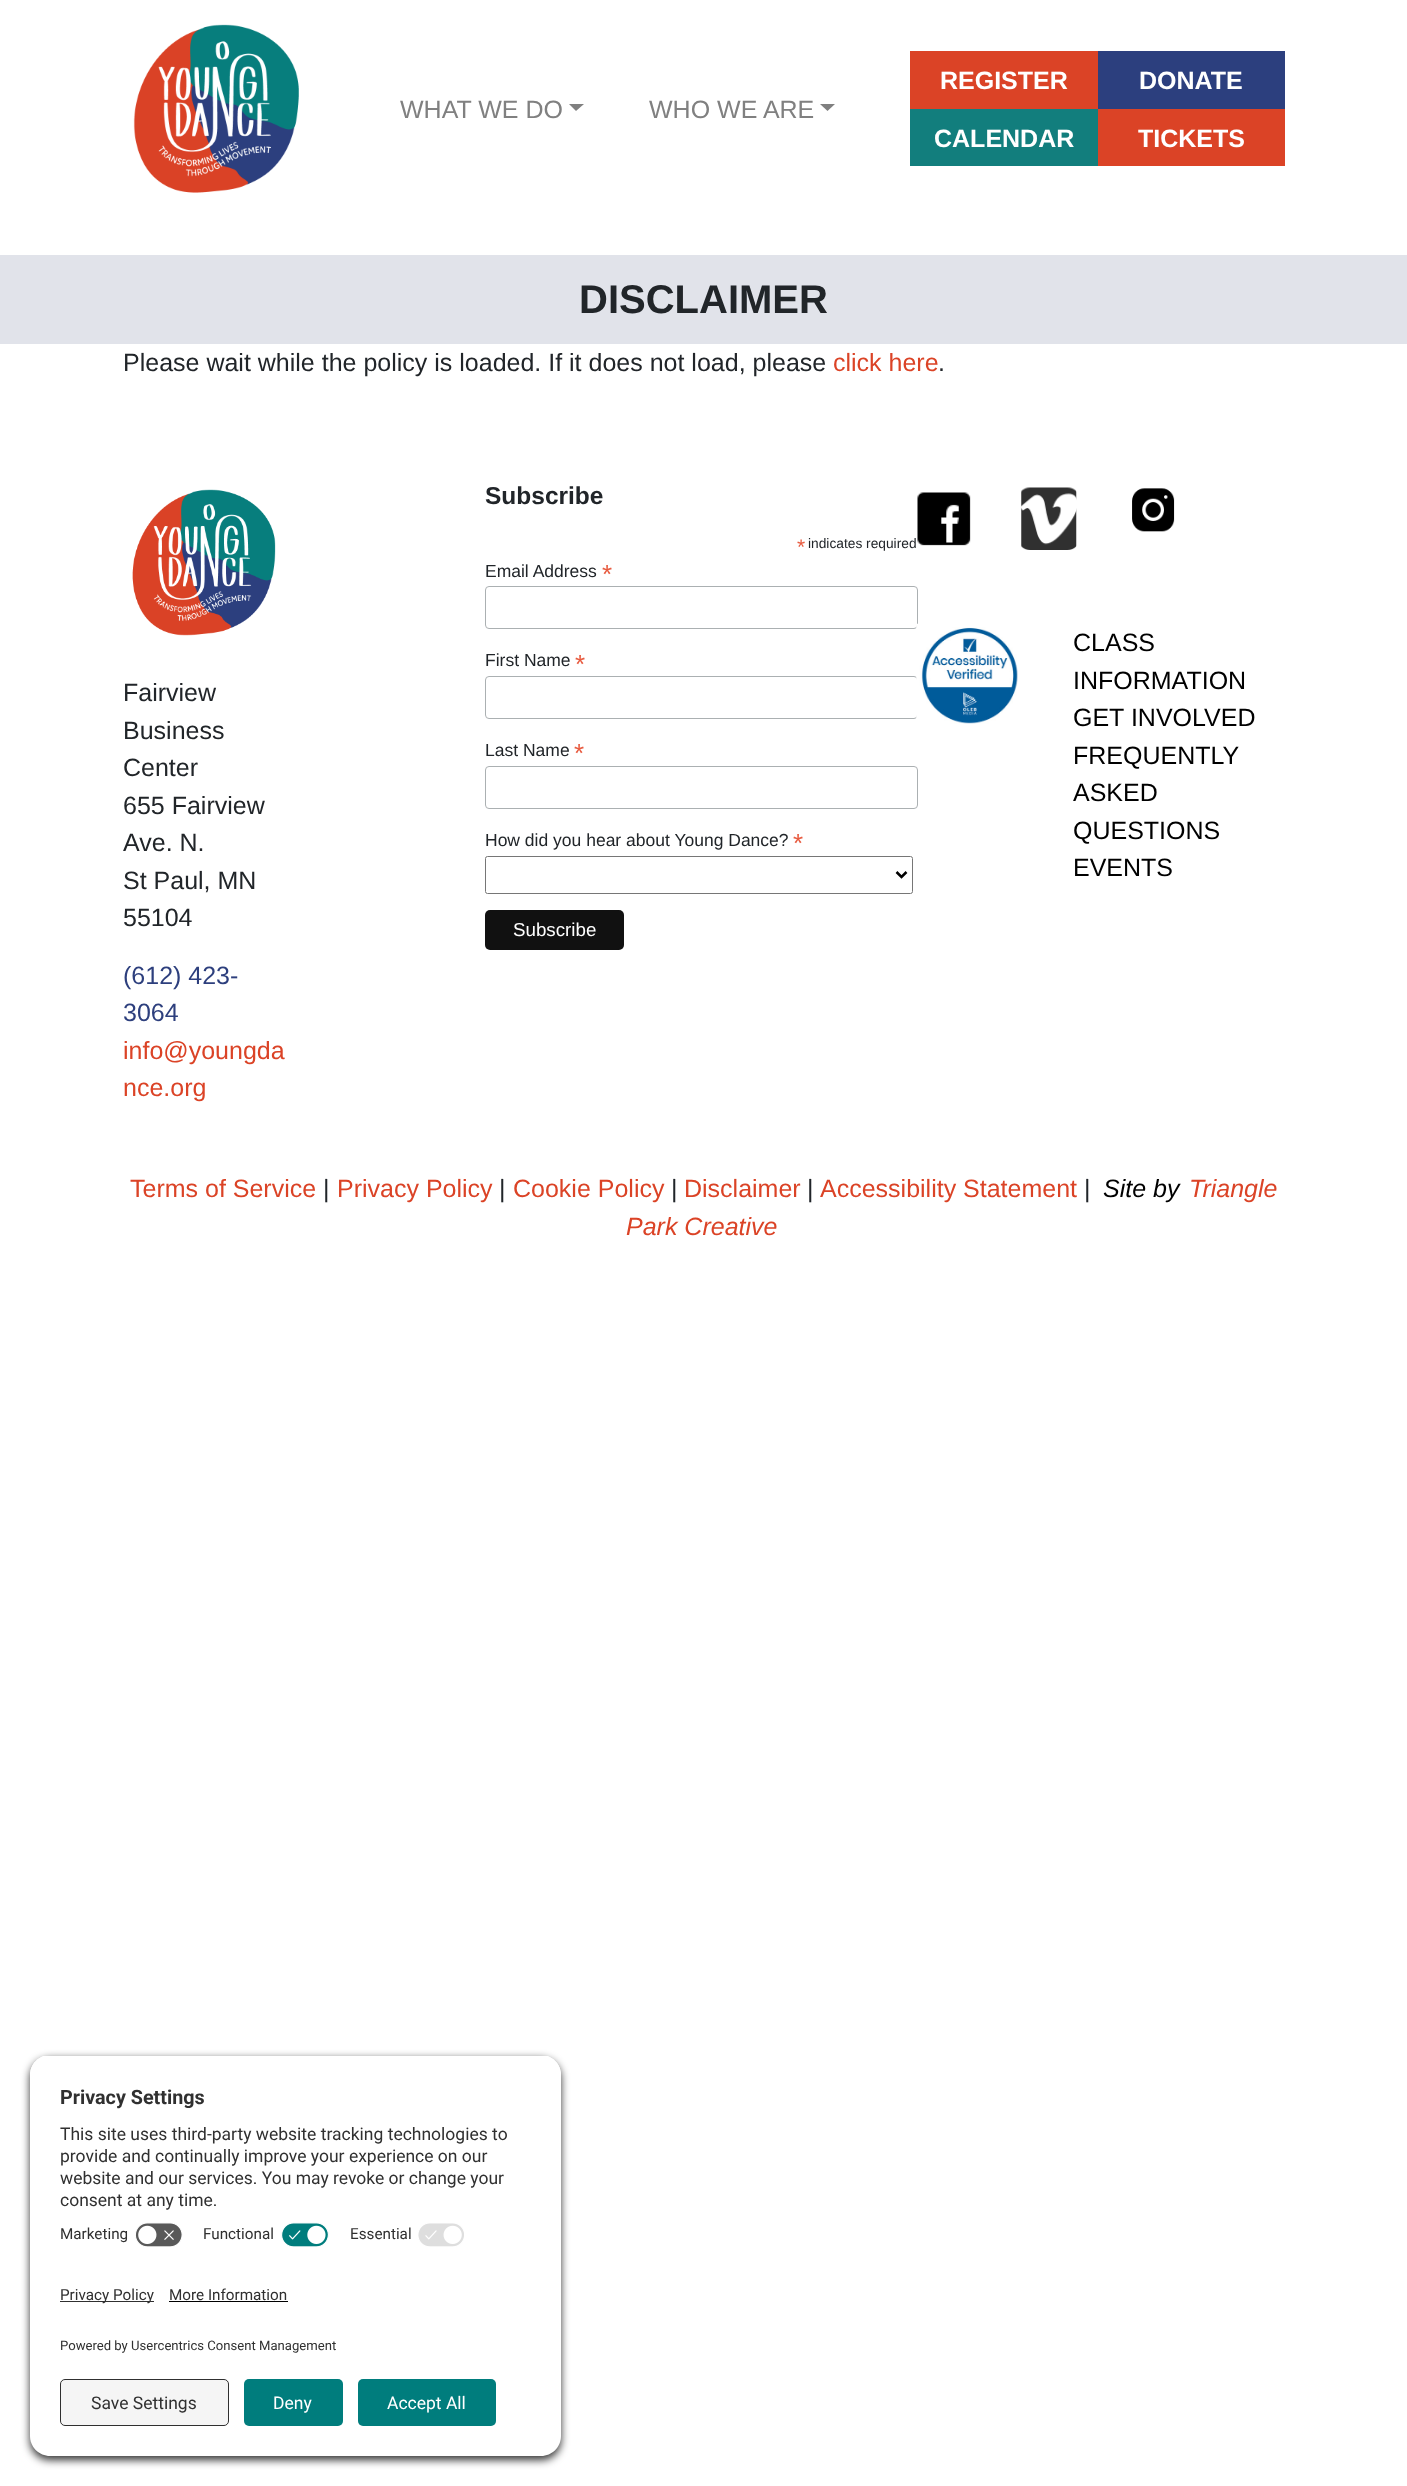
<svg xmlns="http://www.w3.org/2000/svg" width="1407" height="2486">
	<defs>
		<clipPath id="clip1"><path d="M50 2055H541C552 2055 561 2064 561 2075V2266H30V2075C30 2064 39 2055 50 2055Z" /></clipPath>
	</defs>
	<rect width="100%" height="100%" fill="#FFFFFF" />
	<image x="133" y="24" width="166" height="169" href="assets/img1.png" />
	<text x="400" y="118" font-family="Liberation Sans" font-size="25" fill="#808080">WHAT WE DO</text>
	<path d="M569 104H584L576 111Z" fill="#808080" />
	<text x="649" y="118" font-family="Liberation Sans" font-size="25" fill="#808080">WHO WE ARE</text>
	<path d="M820 104H835L827.5 111Z" fill="#808080" />
	<rect x="910" y="51" width="188" height="58" fill="#DB4326" />
	<text x="940" y="89" font-family="Liberation Sans" font-size="25" font-weight="700" fill="#FFFFFF">REGISTER</text>
	<rect x="1098" y="51" width="187" height="58" fill="#2C3F7E" />
	<text x="1139" y="89" font-family="Liberation Sans" font-size="25" font-weight="700" fill="#FFFFFF">DONATE</text>
	<rect x="910" y="109" width="188" height="57" fill="#127E7D" />
	<text x="934" y="147" font-family="Liberation Sans" font-size="25" font-weight="700" fill="#FFFFFF">CALENDAR</text>
	<rect x="1098" y="109" width="187" height="57" fill="#DB4326" />
	<text x="1138" y="147" font-family="Liberation Sans" font-size="25" font-weight="700" fill="#FFFFFF">TICKETS</text>
	<rect x="0" y="255" width="1407" height="89" fill="#E1E3EA" />
	<text x="579" y="313" font-family="Liberation Sans" font-size="40" font-weight="700" fill="#212529">DISCLAIMER</text>
	<text x="123" y="371" font-family="Liberation Sans" font-size="25" fill="#212529">Please wait while the policy is loaded. If it does not load, please</text>
	<text x="833" y="371" font-family="Liberation Sans" font-size="25" fill="#DB4326">click here</text>
	<text x="938" y="371" font-family="Liberation Sans" font-size="25" fill="#212529">.</text>
	<image x="132" y="489" width="144" height="147" href="assets/img2.png" />
	<g font-family="Liberation Sans" font-size="25" fill="#212529">
		<text x="123" y="701">Fairview</text>
		<text x="123" y="739">Business</text>
		<text x="123" y="776">Center</text>
		<text x="123" y="814">655 Fairview</text>
		<text x="123" y="851">Ave. N.</text>
		<text x="123" y="889">St Paul, MN</text>
		<text x="123" y="926">55104</text>
	</g>
	<g font-family="Liberation Sans" font-size="25" fill="#2D3F7D">
		<text x="123" y="984">(612) 423-</text>
		<text x="123" y="1021">3064</text>
	</g>
	<g font-family="Liberation Sans" font-size="25" fill="#DB4326">
		<text x="123" y="1059">info@youngda</text>
		<text x="123" y="1096">nce.org</text>
	</g>
	<text x="485" y="504" font-family="Liberation Sans" font-size="24.5" font-weight="700" fill="#212529">Subscribe</text>
	<text x="797" y="554" font-family="Liberation Sans" font-size="21" fill="#E85C41">*</text>
	<text x="808" y="548" font-family="Liberation Sans" font-size="13.75" fill="#212529">indicates required</text>
	<text x="485" y="577" font-family="Liberation Sans" font-size="17.5" fill="#212529">Email Address</text>
	<text x="602" y="583" font-family="Liberation Sans" font-size="26" fill="#E85C41">*</text>
	<rect x="485.5" y="586.5" width="432" height="42" rx="3.5" fill="none" stroke="#ABB0B2" />
	<text x="485" y="666" font-family="Liberation Sans" font-size="17.5" fill="#212529">First Name</text>
	<text x="575" y="673" font-family="Liberation Sans" font-size="26" fill="#E85C41">*</text>
	<rect x="485.5" y="676.5" width="432" height="42" rx="3.5" fill="none" stroke="#ABB0B2" />
	<text x="485" y="756" font-family="Liberation Sans" font-size="17.5" fill="#212529">Last Name</text>
	<text x="574" y="762" font-family="Liberation Sans" font-size="26" fill="#E85C41">*</text>
	<rect x="485.5" y="766.5" width="432" height="42" rx="3.5" fill="none" stroke="#ABB0B2" />
	<text x="485" y="846" font-family="Liberation Sans" font-size="17.5" fill="#212529">How did you hear about Young Dance?</text>
	<text x="793" y="852" font-family="Liberation Sans" font-size="26" fill="#E85C41">*</text>
	<rect x="485.5" y="856.5" width="427" height="37" rx="2" fill="none" stroke="#767676" />
	<path d="M896.5 872L901.5 877L906.5 872" fill="none" stroke="#000000" stroke-width="2.5" />
	<rect x="485" y="910" width="139" height="40" rx="5" fill="#111111" />
	<text x="513" y="936" font-family="Liberation Sans" font-size="18.75" fill="#FFFFFF">Subscribe</text>
	<image x="917" y="492" width="54" height="54" href="assets/img3.png" />
	<image x="1021" y="487" width="56" height="63" href="assets/img4.png" />
	<image x="1132" y="488" width="43" height="44" href="assets/img5.png" />
	<image x="916" y="623" width="102" height="101" href="assets/img6.png" />
	<g font-family="Liberation Sans" font-size="25" fill="#000000">
		<text x="1073" y="651">CLASS</text>
		<text x="1073" y="689">INFORMATION</text>
		<text x="1073" y="726">GET INVOLVED</text>
		<text x="1073" y="764">FREQUENTLY</text>
		<text x="1073" y="801">ASKED</text>
		<text x="1073" y="839">QUESTIONS</text>
		<text x="1073" y="876">EVENTS</text>
	</g>
	<text x="130" y="1197" font-family="Liberation Sans" font-size="25" fill="#DB4326">Terms of Service</text>
	<text x="323" y="1197" font-family="Liberation Sans" font-size="25" fill="#212529">|</text>
	<text x="337" y="1197" font-family="Liberation Sans" font-size="25" fill="#DB4326">Privacy Policy</text>
	<text x="499" y="1197" font-family="Liberation Sans" font-size="25" fill="#212529">|</text>
	<text x="513" y="1197" font-family="Liberation Sans" font-size="25" fill="#DB4326">Cookie Policy</text>
	<text x="671" y="1197" font-family="Liberation Sans" font-size="25" fill="#212529">|</text>
	<text x="684" y="1197" font-family="Liberation Sans" font-size="25" fill="#DB4326">Disclaimer</text>
	<text x="807" y="1197" font-family="Liberation Sans" font-size="25" fill="#212529">|</text>
	<text x="820" y="1197" font-family="Liberation Sans" font-size="25" fill="#DB4326">Accessibility Statement</text>
	<text x="1084" y="1197" font-family="Liberation Sans" font-size="25" fill="#212529">|</text>
	<text x="1103" y="1197" font-family="Liberation Sans" font-size="25" font-style="italic" fill="#000000">Site by</text>
	<g font-family="Liberation Sans" font-size="25" font-style="italic" fill="#DB4326">
		<text x="1189" y="1197">Triangle</text>
		<text x="626" y="1235">Park Creative</text>
	</g>
	<rect x="30" y="2059" width="531" height="401" rx="20" fill="#000000" fill-opacity="0.8" filter="blur(4.5px)" />
	<g clip-path="url(#clip1)">
		<rect x="30" y="2056" width="531" height="210" fill="#FFFFFF" />
		<rect x="30" y="2056" width="531" height="160" fill="#FFFFFF" />
	</g>
	<text x="60" y="2104" font-family="Roboto" font-size="19.75" font-weight="700" fill="#303030">Privacy Settings</text>
	<g font-family="Roboto" font-size="17.5" fill="#303030">
		<text x="60" y="2140">This site uses third-party website tracking technologies to</text>
		<text x="60" y="2162">provide and continually improve your experience on our</text>
		<text x="60" y="2184">website and our services. You may revoke or change your</text>
		<text x="60" y="2206">consent at any time.</text>
	</g>
	<text x="60" y="2239" font-family="Roboto" font-size="15.25" fill="#303030">Marketing</text>
	<image x="135" y="2222" width="48" height="25" href="assets/img7.png" />
	<text x="203" y="2239" font-family="Roboto" font-size="15.25" fill="#303030">Functional</text>
	<image x="281" y="2222" width="48" height="25" href="assets/img8.png" />
	<text x="350" y="2239" font-family="Roboto" font-size="15.25" fill="#303030">Essential</text>
	<image x="418" y="2223" width="46" height="24" href="assets/img9.png" />
	<path d="M30 2266H561V2436C561 2447 552 2456 541 2456H50C39 2456 30 2447 30 2436Z" fill="#FFFFFF" />
	<rect x="60" y="2301" width="94" height="1" fill="#303030" />
	<g font-family="Roboto" font-size="15.25" fill="#303030">
		<text x="60" y="2300">Privacy Policy</text>
		<text x="169" y="2300">More Information</text>
	</g>
	<rect x="169" y="2301" width="119" height="1" fill="#000000" />
	<text x="60" y="2350" font-family="Roboto" font-size="13.1" fill="#303030">Powered by Usercentrics Consent Management</text>
	<rect x="60.5" y="2379.5" width="168" height="46" rx="4.5" fill="#F5F5F5" stroke="#303030" />
	<text x="91" y="2409" font-family="Roboto" font-size="17.5" fill="#303030">Save Settings</text>
	<rect x="244" y="2379" width="99" height="47" rx="5" fill="#007D7D" />
	<text x="273" y="2409" font-family="Roboto" font-size="17.5" fill="#FFFFFF">Deny</text>
	<rect x="358" y="2379" width="138" height="47" rx="5" fill="#007D7D" />
	<text x="387" y="2409" font-family="Roboto" font-size="17.5" fill="#FFFFFF">Accept All</text>
</svg>
